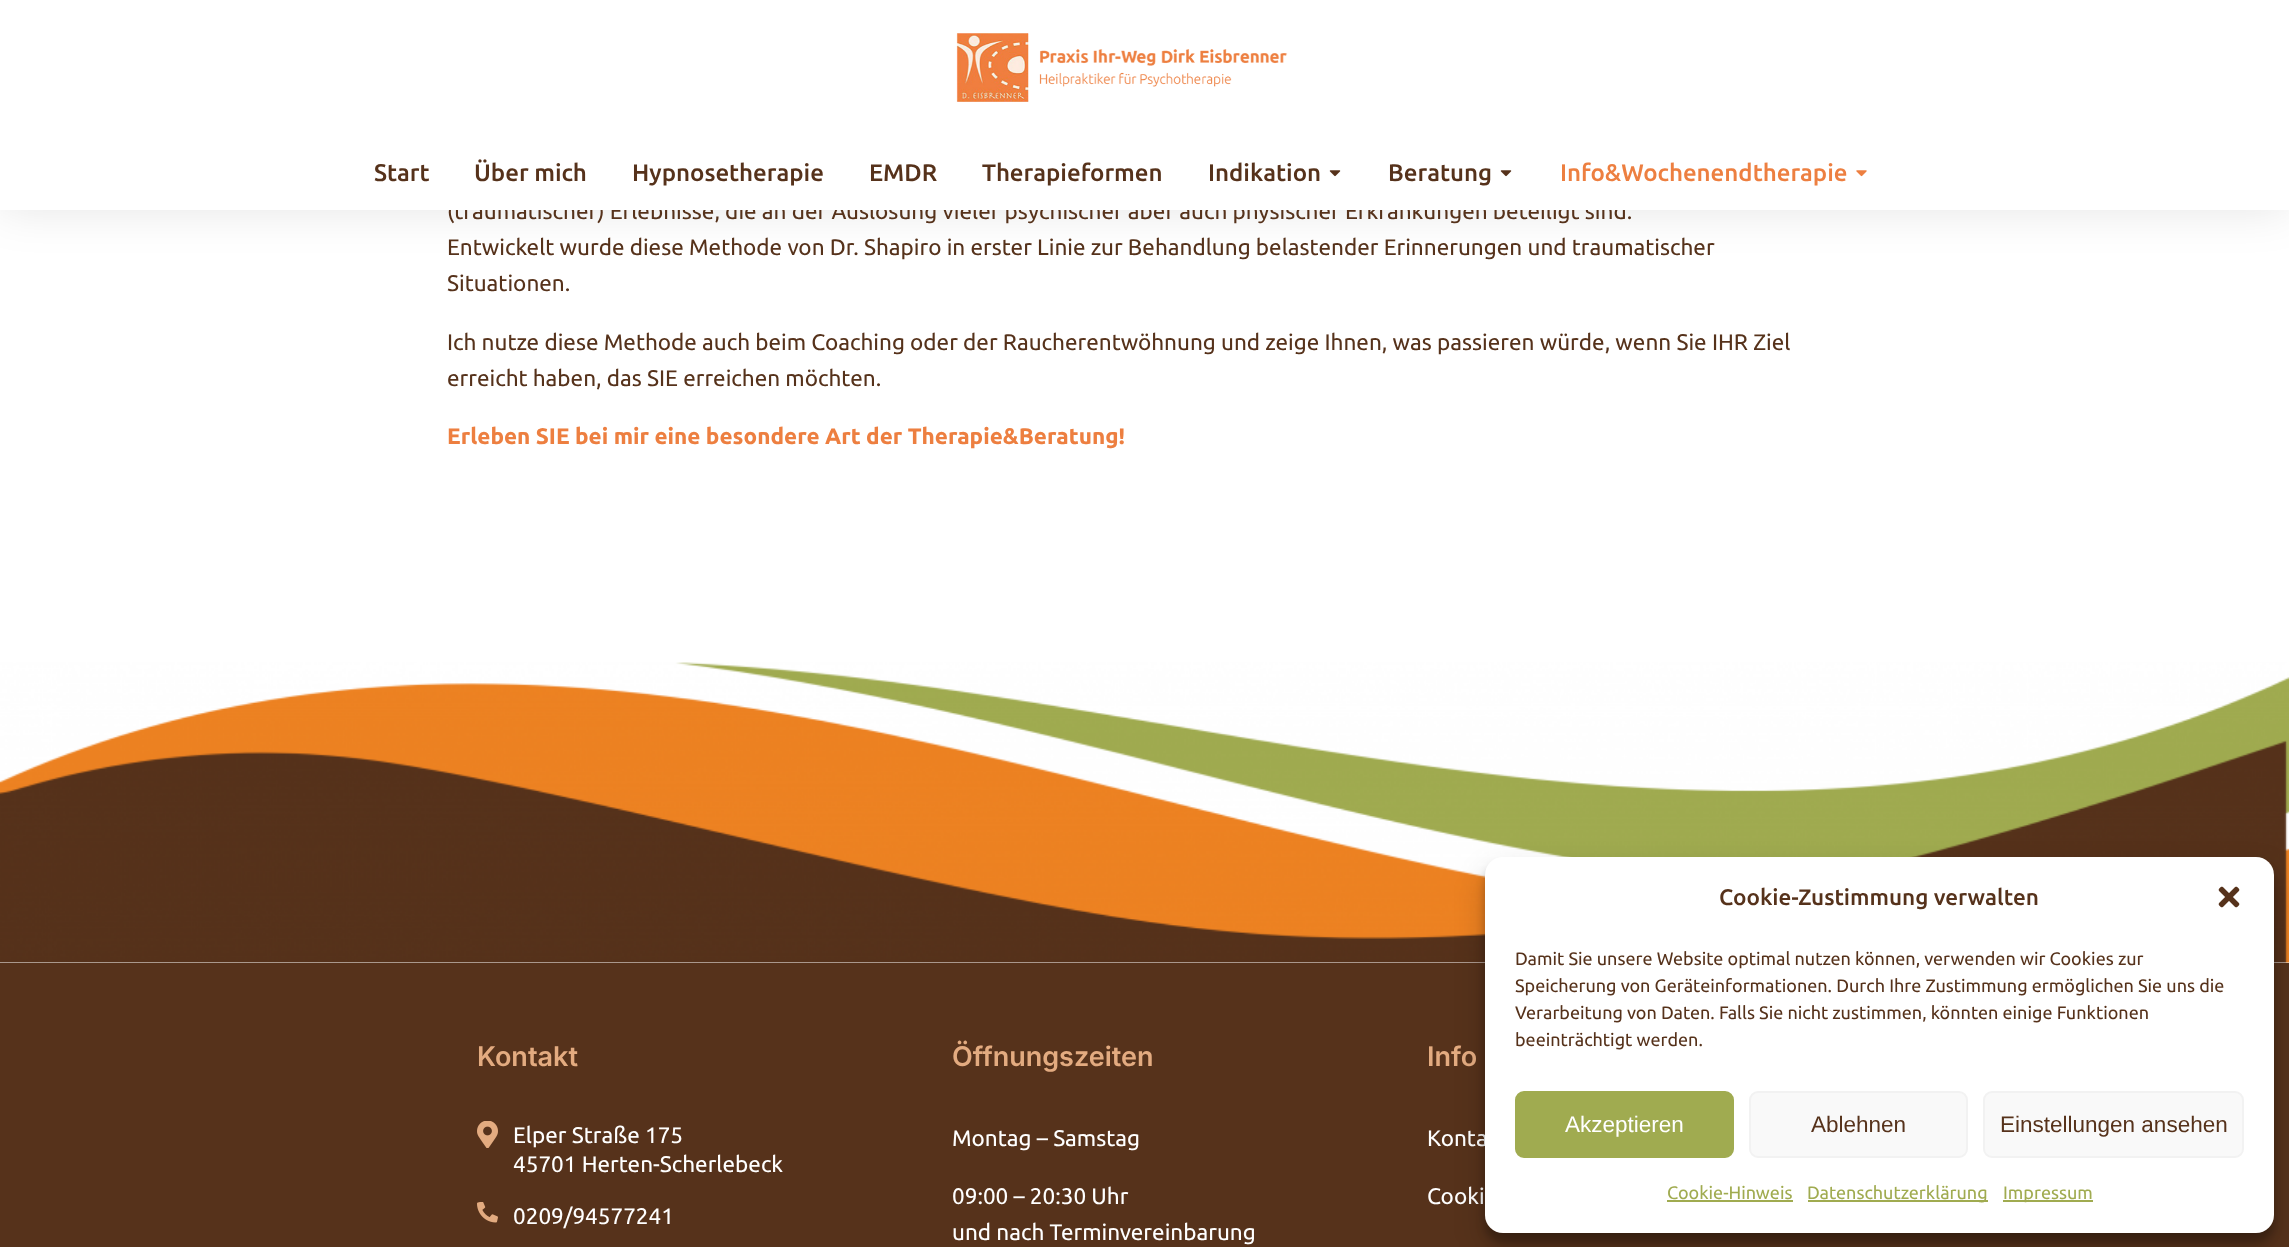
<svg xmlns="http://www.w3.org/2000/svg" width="2289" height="1247">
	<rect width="100%" height="100%" fill="#FFFFFF" />
	<rect x="0" y="0" width="2289" height="210" fill="#000000" fill-opacity="0.1" filter="blur(22.5px)" />
	<text x="447" y="219" font-family="Ubuntu" font-size="22.5" fill="#56321B">(traumatischer) Erlebnisse, die an der Auslösung vieler psychischer aber auch physischer Erkrankungen beteiligt sind.</text>
	<rect x="0" y="0" width="2289" height="210" fill="#FFFFFF" />
	<image x="956" y="33" width="332" height="69" href="assets/img1.png" />
	<g font-family="Ubuntu" font-size="24" font-weight="500" fill="#56321B">
		<text x="374" y="181">Start</text>
		<text x="474" y="181">Über mich</text>
		<text x="632" y="181">Hypnosetherapie</text>
		<text x="869" y="181">EMDR</text>
		<text x="982" y="181">Therapieformen</text>
		<text x="1208" y="181">Indikation</text>
	</g>
	<image x="1329" y="170" width="12" height="7" href="assets/img2.png" />
	<text x="1388" y="181" font-family="Ubuntu" font-size="24" font-weight="500" fill="#56321B">Beratung</text>
	<image x="1500" y="170" width="12" height="7" href="assets/img2.png" />
	<text x="1560" y="181" font-family="Ubuntu" font-size="24" font-weight="500" fill="#ED7F40">Info&amp;Wochenendtherapie</text>
	<image x="1856" y="170" width="11" height="7" href="assets/img3.png" />
	<g font-family="Ubuntu" font-size="22.5" fill="#56321B">
		<text x="447" y="255">Entwickelt wurde diese Methode von Dr. Shapiro in erster Linie zur Behandlung belastender Erinnerungen und traumatischer</text>
		<text x="447" y="291">Situationen.</text>
		<text x="447" y="350">Ich nutze diese Methode auch beim Coaching oder der Raucherentwöhnung und zeige Ihnen, was passieren würde, wenn Sie IHR Ziel</text>
		<text x="447" y="386">erreicht haben, das SIE erreichen möchten.</text>
	</g>
	<text x="447" y="444" font-family="Ubuntu" font-size="22.5" font-weight="700" fill="#ED7F40">Erleben SIE bei mir eine besondere Art der Therapie&amp;Beratung!</text>
	<image x="0" y="662" width="2289" height="301" href="assets/img4.png" />
	<rect x="0" y="963" width="2289" height="284" fill="#56321B" />
	<text x="477" y="1066" font-family="Inter" font-size="27" font-weight="600" fill="#E3AB80">Kontakt</text>
	<image x="477" y="1121" width="21" height="27" href="assets/img5.png" />
	<g font-family="Ubuntu" font-size="22.5" fill="#FFFFFF">
		<text x="513" y="1143">Elper Straße 175</text>
		<text x="513" y="1172">45701 Herten-Scherlebeck</text>
	</g>
	<image x="477" y="1202" width="21" height="21" href="assets/img6.png" />
	<text x="513" y="1224" font-family="Ubuntu" font-size="22.5" fill="#FFFFFF">0209/94577241</text>
	<text x="952" y="1066" font-family="Inter" font-size="27" font-weight="600" fill="#E3AB80">Öffnungszeiten</text>
	<g font-family="Ubuntu" font-size="22.5" fill="#FFFFFF">
		<text x="952" y="1146">Montag – Samstag</text>
		<text x="952" y="1204">09:00 – 20:30 Uhr</text>
		<text x="952" y="1240">und nach Terminvereinbarung</text>
	</g>
	<text x="1427" y="1066" font-family="Inter" font-size="27" font-weight="600" fill="#E3AB80">Info</text>
	<g font-family="Ubuntu" font-size="22.5" fill="#FFFFFF">
		<text x="1427" y="1146">Konta</text>
		<text x="1427" y="1204">Cooki</text>
	</g>
	<rect x="1485" y="866" width="789" height="376" rx="18" fill="#000000" fill-opacity="0.23" filter="blur(4.5px)" />
	<rect x="1485" y="872" width="789" height="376" rx="18" fill="#000000" fill-opacity="0.19" filter="blur(15px)" />
	<rect x="1485" y="857" width="789" height="376" rx="18" fill="#FFFFFF" />
	<text x="1719" y="905" font-family="Ubuntu" font-size="22.5" font-weight="500" fill="#56321B">Cookie-Zustimmung verwalten</text>
	<image x="2218" y="886" width="22" height="22" href="assets/img7.png" />
	<g font-family="Ubuntu" font-size="18" fill="#56321B">
		<text x="1515" y="965">Damit Sie unsere Website optimal nutzen können, verwenden wir Cookies zur</text>
		<text x="1515" y="992">Speicherung von Geräteinformationen. Durch Ihre Zustimmung ermöglichen Sie uns die</text>
		<text x="1515" y="1019">Verarbeitung von Daten. Falls Sie nicht zustimmen, könnten einige Funktionen</text>
		<text x="1515" y="1046">beeinträchtigt werden.</text>
	</g>
	<rect x="1516" y="1092" width="217" height="65" rx="8" fill="#A0AB50" stroke="#A0AB50" stroke-width="2" />
	<text x="1565" y="1132" font-family="Liberation Sans" font-size="22.5" fill="#FFFFFF">Akzeptieren</text>
	<rect x="1750" y="1092" width="217" height="65" rx="8" fill="#F9F9F9" stroke="#F2F2F2" stroke-width="2" />
	<text x="1811" y="1132" font-family="Liberation Sans" font-size="22.5" fill="#56321B">Ablehnen</text>
	<rect x="1984" y="1092" width="259" height="65" rx="8" fill="#F9F9F9" stroke="#F2F2F2" stroke-width="2" />
	<text x="2000" y="1132" font-family="Liberation Sans" font-size="22.5" fill="#56321B">Einstellungen ansehen</text>
	<text x="1667" y="1199" font-family="Ubuntu" font-size="18" fill="#A0AB50">Cookie-Hinweis</text>
	<rect x="1667" y="1200" width="126" height="2" fill="#A0AB50" />
	<rect x="1808" y="1200" width="180" height="2" fill="#A0AB50" />
	<text x="1807" y="1199" font-family="Ubuntu" font-size="18" fill="#A0AB50">Datenschutzerklärung</text>
	<rect x="2003" y="1200" width="90" height="2" fill="#A0AB50" />
	<text x="2003" y="1199" font-family="Ubuntu" font-size="18" fill="#A0AB50">Impressum</text>
</svg>
